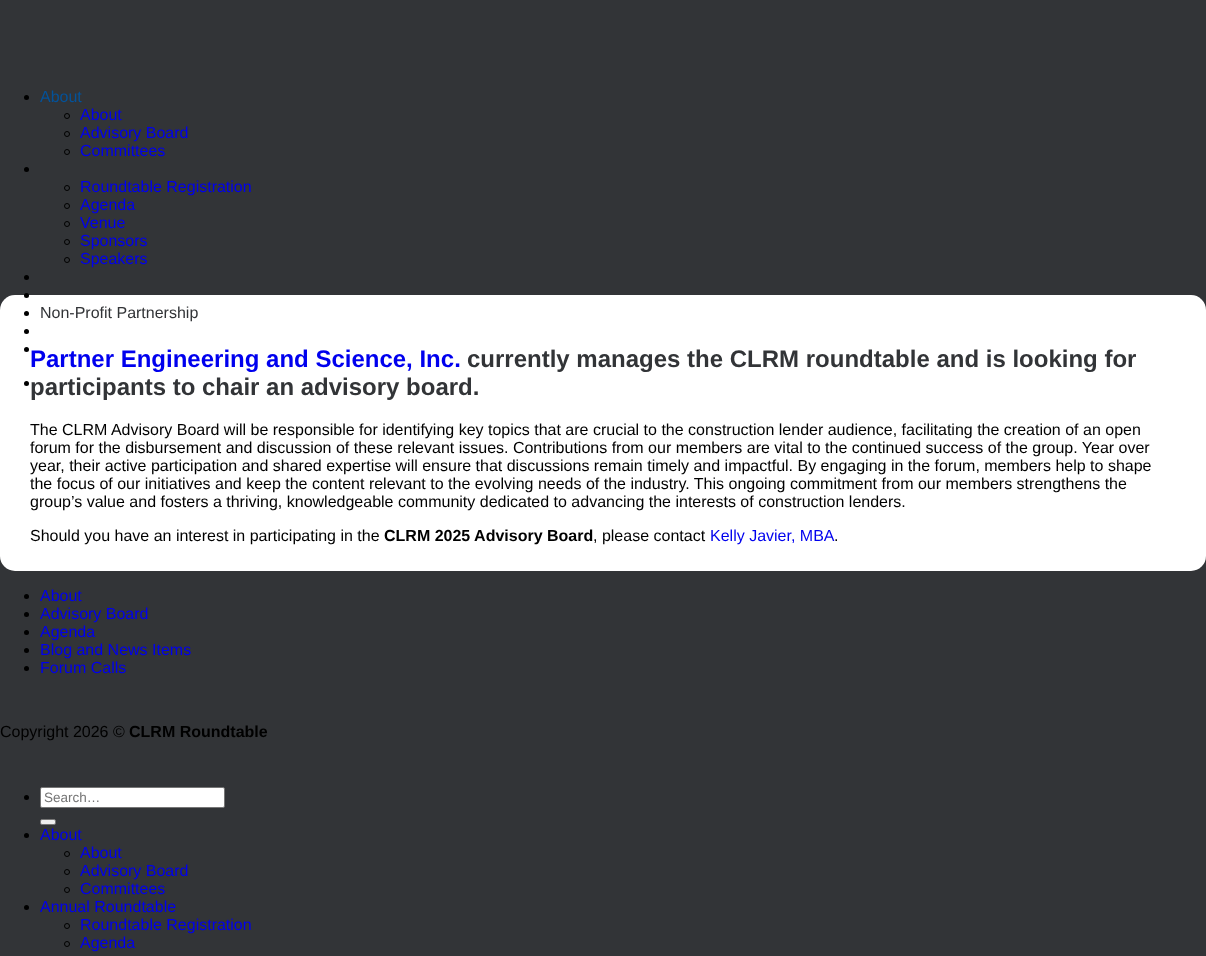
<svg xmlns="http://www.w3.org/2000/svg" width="1206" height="956">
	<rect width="100%" height="100%" fill="#323437" />
	<circle cx="26.5" cy="97.5" r="2.5" fill="#000000" />
	<text x="40" y="102" font-family="Liberation Sans" font-size="16" fill="#03529A">About</text>
	<circle cx="67" cy="116" r="2.5" fill="none" stroke="#000000" />
	<text x="80" y="120" font-family="Liberation Sans" font-size="16" fill="#0000EE">About</text>
	<circle cx="67" cy="134" r="2.5" fill="none" stroke="#000000" />
	<text x="80" y="138" font-family="Liberation Sans" font-size="16" fill="#0000EE">Advisory Board</text>
	<circle cx="67" cy="152" r="2.5" fill="none" stroke="#000000" />
	<text x="80" y="156" font-family="Liberation Sans" font-size="16" fill="#0000EE">Committees</text>
	<circle cx="26.5" cy="169.5" r="2.5" fill="#000000" />
	<circle cx="67" cy="188" r="2.5" fill="none" stroke="#000000" />
	<text x="80" y="192" font-family="Liberation Sans" font-size="16" fill="#0000EE">Roundtable Registration</text>
	<circle cx="67" cy="206" r="2.5" fill="none" stroke="#000000" />
	<text x="80" y="210" font-family="Liberation Sans" font-size="16" fill="#0000EE">Agenda</text>
	<circle cx="67" cy="224" r="2.5" fill="none" stroke="#000000" />
	<text x="80" y="228" font-family="Liberation Sans" font-size="16" fill="#0000EE">Venue</text>
	<circle cx="67" cy="242" r="2.5" fill="none" stroke="#000000" />
	<text x="80" y="246" font-family="Liberation Sans" font-size="16" fill="#0000EE">Sponsors</text>
	<circle cx="67" cy="260" r="2.5" fill="none" stroke="#000000" />
	<text x="80" y="264" font-family="Liberation Sans" font-size="16" fill="#0000EE">Speakers</text>
	<circle cx="26.5" cy="277.5" r="2.5" fill="#000000" />
	<rect x="0" y="295" width="1206" height="276" rx="15" fill="#FFFFFF" />
	<circle cx="26.5" cy="295.5" r="2.5" fill="#000000" />
	<circle cx="26.5" cy="313.5" r="2.5" fill="#000000" />
	<text x="40" y="318" font-family="Liberation Sans" font-size="16" fill="#323437">Non-Profit Partnership</text>
	<circle cx="26.5" cy="331.5" r="2.5" fill="#000000" />
	<circle cx="26.5" cy="349.5" r="2.5" fill="#000000" />
	<circle cx="26.5" cy="383.5" r="2.5" fill="#000000" />
	<text x="30" y="367" font-family="Liberation Sans" font-size="24" font-weight="700" fill="#0000EE">Partner Engineering and Science, Inc.</text>
	<g font-family="Liberation Sans" font-size="24" font-weight="700" fill="#323437">
		<text x="467" y="367">currently manages the CLRM roundtable and is looking for</text>
		<text x="30" y="395">participants to chair an advisory board.</text>
	</g>
	<g font-family="Liberation Sans" font-size="16" fill="#000000">
		<text x="30" y="435">The CLRM Advisory Board will be responsible for identifying key topics that are crucial to the construction lender audience, facilitating the creation of an open</text>
		<text x="30" y="453">forum for the disbursement and discussion of these relevant issues. Contributions from our members are vital to the continued success of the group. Year over</text>
		<text x="30" y="471">year, their active participation and shared expertise will ensure that discussions remain timely and impactful. By engaging in the forum, members help to shape</text>
		<text x="30" y="489">the focus of our initiatives and keep the content relevant to the evolving needs of the industry. This ongoing commitment from our members strengthens the</text>
		<text x="30" y="507">group’s value and fosters a thriving, knowledgeable community dedicated to advancing the interests of construction lenders.</text>
		<text x="30" y="541">Should you have an interest in participating in the</text>
	</g>
	<text x="384" y="541" font-family="Liberation Sans" font-size="16" font-weight="700" fill="#000000">CLRM 2025 Advisory Board</text>
	<text x="593" y="541" font-family="Liberation Sans" font-size="16" fill="#000000">, please contact</text>
	<text x="710" y="541" font-family="Liberation Sans" font-size="16" fill="#0000EE">Kelly Javier, MBA</text>
	<text x="834" y="541" font-family="Liberation Sans" font-size="16" fill="#000000">.</text>
	<circle cx="26.5" cy="596.5" r="2.5" fill="#000000" />
	<text x="40" y="601" font-family="Liberation Sans" font-size="16" fill="#0000EE">About</text>
	<circle cx="26.5" cy="614.5" r="2.5" fill="#000000" />
	<text x="40" y="619" font-family="Liberation Sans" font-size="16" fill="#0000EE">Advisory Board</text>
	<circle cx="26.5" cy="632.5" r="2.5" fill="#000000" />
	<text x="40" y="637" font-family="Liberation Sans" font-size="16" fill="#0000EE">Agenda</text>
	<circle cx="26.5" cy="650.5" r="2.5" fill="#000000" />
	<text x="40" y="655" font-family="Liberation Sans" font-size="16" fill="#0000EE">Blog and News Items</text>
	<circle cx="26.5" cy="668.5" r="2.5" fill="#000000" />
	<text x="40" y="673" font-family="Liberation Sans" font-size="16" fill="#0000EE">Forum Calls</text>
	<text x="0" y="737" font-family="Liberation Sans" font-size="16" fill="#000000">Copyright 2026 ©</text>
	<text x="129" y="737" font-family="Liberation Sans" font-size="16" font-weight="700" fill="#000000">CLRM Roundtable</text>
	<circle cx="26.5" cy="797.5" r="2.5" fill="#000000" />
	<rect x="40.5" y="787.5" width="184" height="20" rx="1.5" fill="#FFFFFF" stroke="#767676" />
	<text x="44" y="802" font-family="Liberation Sans" font-size="13.5" fill="#757575">Search…</text>
	<rect x="40.5" y="819.5" width="15" height="5" rx="1.5" fill="#EFEFEF" stroke="#767676" />
	<circle cx="26.5" cy="835.5" r="2.5" fill="#000000" />
	<text x="40" y="840" font-family="Liberation Sans" font-size="16" fill="#0000EE">About</text>
	<circle cx="67" cy="854" r="2.5" fill="none" stroke="#000000" />
	<text x="80" y="858" font-family="Liberation Sans" font-size="16" fill="#0000EE">About</text>
	<circle cx="67" cy="872" r="2.5" fill="none" stroke="#000000" />
	<text x="80" y="876" font-family="Liberation Sans" font-size="16" fill="#0000EE">Advisory Board</text>
	<circle cx="67" cy="890" r="2.5" fill="none" stroke="#000000" />
	<text x="80" y="894" font-family="Liberation Sans" font-size="16" fill="#0000EE">Committees</text>
	<circle cx="26.5" cy="907.5" r="2.5" fill="#000000" />
	<text x="40" y="912" font-family="Liberation Sans" font-size="16" fill="#0000EE">Annual Roundtable</text>
	<circle cx="67" cy="926" r="2.5" fill="none" stroke="#000000" />
	<text x="80" y="930" font-family="Liberation Sans" font-size="16" fill="#0000EE">Roundtable Registration</text>
	<circle cx="67" cy="944" r="2.5" fill="none" stroke="#000000" />
	<text x="80" y="948" font-family="Liberation Sans" font-size="16" fill="#0000EE">Agenda</text>
</svg>
